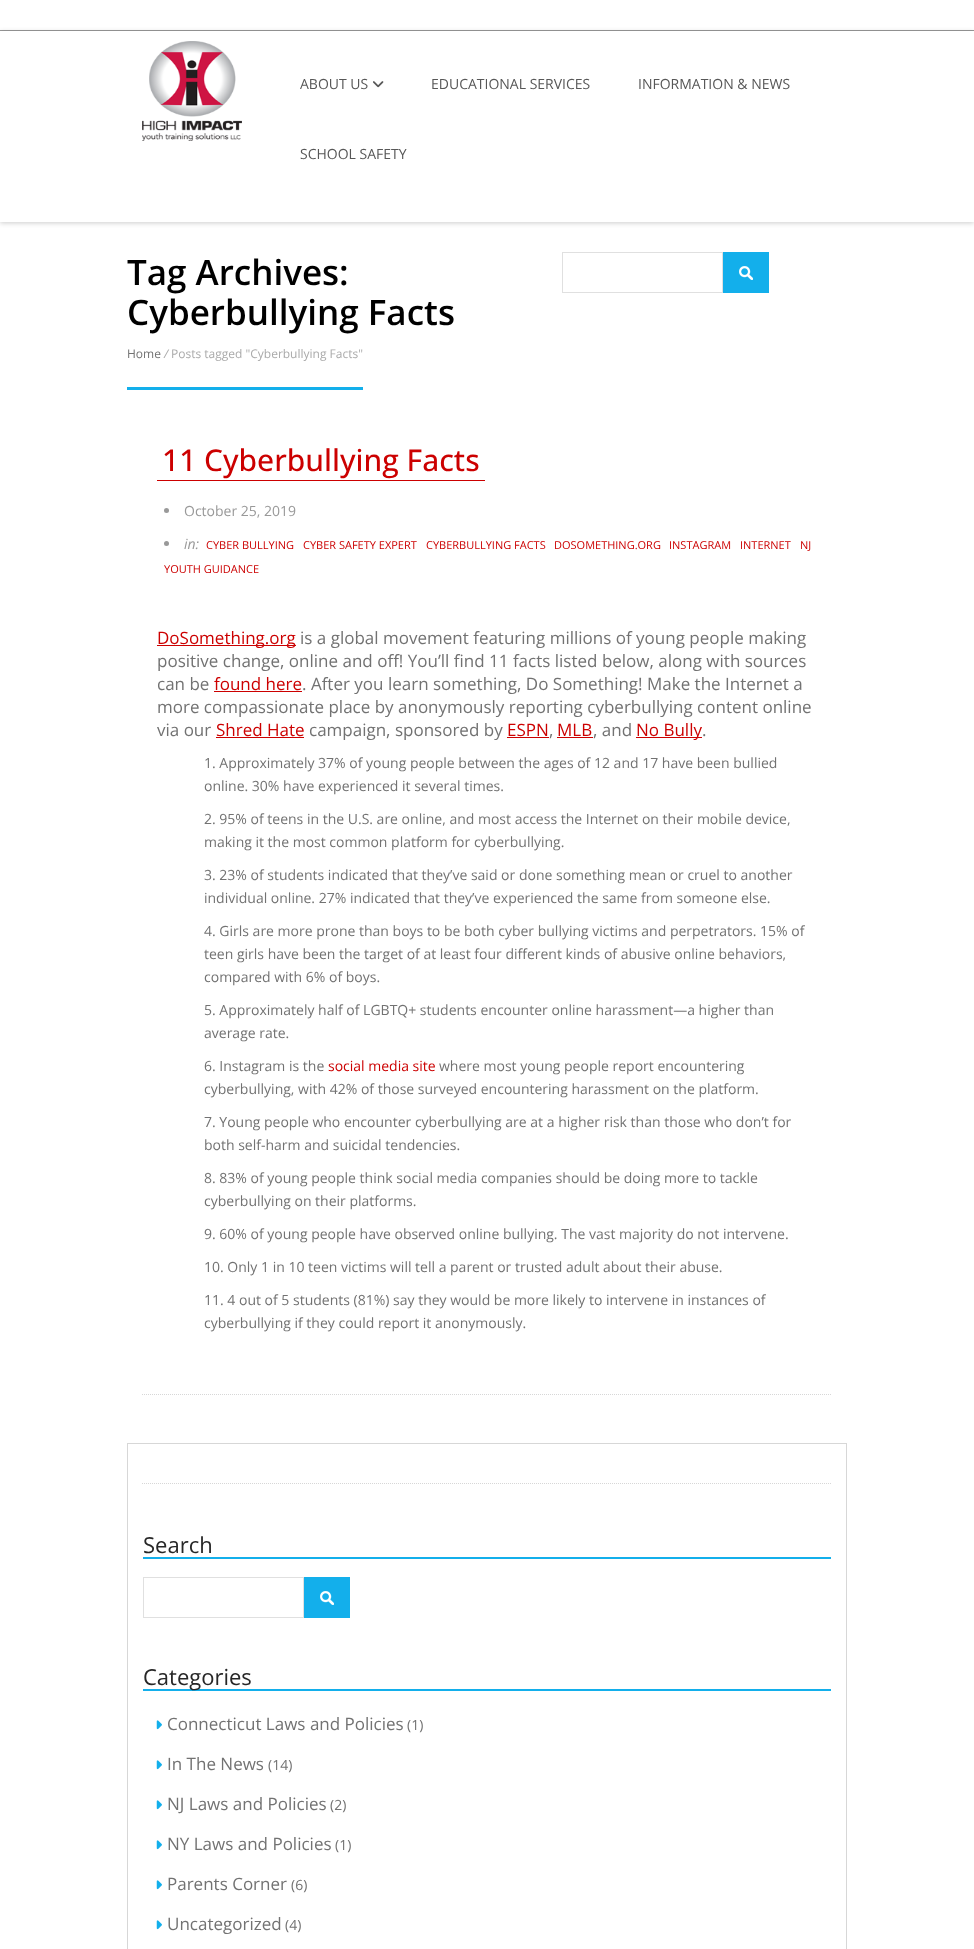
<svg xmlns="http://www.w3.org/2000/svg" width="974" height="1949">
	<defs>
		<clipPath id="clip1"><path d="M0 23H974V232H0ZM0 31H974V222H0Z" clip-rule="evenodd" /></clipPath>
	</defs>
	<rect width="100%" height="100%" fill="#FFFFFF" />
	<rect x="0" y="30" width="974" height="1" fill="#999999" />
	<g clip-path="url(#clip1)">
		<rect x="0" y="32" width="974" height="191" fill="#000000" fill-opacity="0.2" filter="blur(2.5px)" />
	</g>
	<image x="142" y="41" width="100" height="100" href="assets/img1.png" />
	<text x="300" y="89" font-family="Open Sans" font-size="14" fill="#575757">ABOUT US</text>
	<image x="373" y="81" width="11" height="7" href="assets/img2.png" />
	<g font-family="Open Sans" font-size="14" fill="#575757">
		<text x="431" y="89">EDUCATIONAL SERVICES</text>
		<text x="638" y="89">INFORMATION &amp; NEWS</text>
		<text x="300" y="159">SCHOOL SAFETY</text>
	</g>
	<g font-family="Open Sans" font-size="35" font-weight="600" fill="#000000">
		<text x="127" y="285">Tag Archives:</text>
		<text x="127" y="325">Cyberbullying Facts</text>
	</g>
	<rect x="127" y="387" width="236" height="3" fill="#13AFEB" />
	<text x="127" y="358" font-family="Open Sans" font-size="12" fill="#727272">Home</text>
	<text x="164" y="358" font-family="Open Sans" font-size="12" font-style="italic" fill="#AAAAAA">/</text>
	<text x="171" y="358" font-family="Open Sans" font-size="12" fill="#AAAAAA">Posts tagged "Cyberbullying Facts"</text>
	<rect x="562.5" y="252.5" width="160" height="40" fill="none" stroke="#E0E0E0" />
	<rect x="723" y="252" width="46" height="41" fill="#13AFEB" />
	<image x="739" y="266" width="14" height="14" href="assets/img3.png" />
	<rect x="157" y="480" width="328" height="1" fill="#CC0000" />
	<text x="162" y="471" font-family="Open Sans" font-size="30" font-weight="500" fill="#CC0000">11 Cyberbullying Facts</text>
	<circle cx="166.5" cy="510.5" r="2.5" fill="#999999" />
	<text x="184" y="516" font-family="Open Sans" font-size="14" fill="#999999">October 25, 2019</text>
	<circle cx="166.5" cy="543.5" r="2.5" fill="#999999" />
	<text x="184" y="549" font-family="Open Sans" font-size="14" font-style="italic" fill="#999999">in:</text>
	<g font-family="Open Sans" font-size="11" fill="#CC0000">
		<text x="206" y="549">CYBER BULLYING</text>
		<text x="303" y="549">CYBER SAFETY EXPERT</text>
		<text x="426" y="549">CYBERBULLYING FACTS</text>
		<text x="554" y="549">DOSOMETHING.ORG</text>
		<text x="669" y="549">INSTAGRAM</text>
		<text x="740" y="549">INTERNET</text>
		<text x="800" y="549">NJ</text>
		<text x="164" y="573">YOUTH GUIDANCE</text>
	</g>
	<rect x="157" y="645" width="139" height="1" fill="#CC0000" />
	<text x="157" y="644" font-family="Open Sans" font-size="17" fill="#CC0000">DoSomething.org</text>
	<g font-family="Open Sans" font-size="17" fill="#727272">
		<text x="300" y="644">is a global movement featuring millions of young people making</text>
		<text x="157" y="667">positive change, online and off! You’ll find 11 facts listed below, along with sources</text>
		<text x="157" y="690">can be</text>
	</g>
	<text x="214" y="690" font-family="Open Sans" font-size="17" fill="#CC0000">found here</text>
	<rect x="214" y="691" width="88" height="1" fill="#CC0000" />
	<g font-family="Open Sans" font-size="17" fill="#727272">
		<text x="302" y="690">. After you learn something, Do Something! Make the Internet a</text>
		<text x="157" y="713">more compassionate place by anonymously reporting cyberbullying content online</text>
		<text x="157" y="736">via our</text>
	</g>
	<text x="216" y="736" font-family="Open Sans" font-size="17" fill="#CC0000">Shred Hate</text>
	<rect x="216" y="737" width="88" height="1" fill="#CC0000" />
	<text x="309" y="736" font-family="Open Sans" font-size="17" fill="#727272">campaign, sponsored by</text>
	<text x="507" y="736" font-family="Open Sans" font-size="17" fill="#CC0000">ESPN</text>
	<rect x="507" y="737" width="42" height="1" fill="#CC0000" />
	<text x="549" y="736" font-family="Open Sans" font-size="17" fill="#727272">,</text>
	<text x="557" y="736" font-family="Open Sans" font-size="17" fill="#CC0000">MLB</text>
	<rect x="557" y="737" width="36" height="1" fill="#CC0000" />
	<text x="593" y="736" font-family="Open Sans" font-size="17" fill="#727272">, and</text>
	<rect x="636" y="737" width="66" height="1" fill="#CC0000" />
	<text x="636" y="736" font-family="Open Sans" font-size="17" fill="#CC0000">No Bully</text>
	<text x="702" y="736" font-family="Open Sans" font-size="17" fill="#727272">.</text>
	<g font-family="Open Sans" font-size="14" fill="#727272">
		<text x="204" y="768">1. Approximately 37% of young people between the ages of 12 and 17 have been bullied</text>
		<text x="204" y="791">online. 30% have experienced it several times.</text>
		<text x="204" y="824">2. 95% of teens in the U.S. are online, and most access the Internet on their mobile device,</text>
		<text x="204" y="847">making it the most common platform for cyberbullying.</text>
		<text x="204" y="880">3. 23% of students indicated that they’ve said or done something mean or cruel to another</text>
		<text x="204" y="903">individual online. 27% indicated that they’ve experienced the same from someone else.</text>
		<text x="204" y="936">4. Girls are more prone than boys to be both cyber bullying victims and perpetrators. 15% of</text>
		<text x="204" y="959">teen girls have been the target of at least four different kinds of abusive online behaviors,</text>
		<text x="204" y="982">compared with 6% of boys.</text>
		<text x="204" y="1015">5. Approximately half of LGBTQ+ students encounter online harassment—a higher than</text>
		<text x="204" y="1038">average rate.</text>
		<text x="204" y="1071">6. Instagram is the</text>
	</g>
	<text x="328" y="1071" font-family="Open Sans" font-size="14" fill="#CC0000">social media site</text>
	<g font-family="Open Sans" font-size="14" fill="#727272">
		<text x="439" y="1071">where most young people report encountering</text>
		<text x="204" y="1094">cyberbullying, with 42% of those surveyed encountering harassment on the platform.</text>
		<text x="204" y="1127">7. Young people who encounter cyberbullying are at a higher risk than those who don’t for</text>
		<text x="204" y="1150">both self-harm and suicidal tendencies.</text>
		<text x="204" y="1183">8. 83% of young people think social media companies should be doing more to tackle</text>
		<text x="204" y="1206">cyberbullying on their platforms.</text>
		<text x="204" y="1239">9. 60% of young people have observed online bullying. The vast majority do not intervene.</text>
		<text x="204" y="1272">10. Only 1 in 10 teen victims will tell a parent or trusted adult about their abuse.</text>
		<text x="204" y="1305">11. 4 out of 5 students (81%) say they would be more likely to intervene in instances of</text>
		<text x="204" y="1328">cyberbullying if they could report it anonymously.</text>
	</g>
	<path d="M142 1394.5H832" fill="none" stroke="#D7D7D7" stroke-dasharray="1 1" />
	<path d="M142 1483.5H832" fill="none" stroke="#D7D7D7" stroke-dasharray="1 1" />
	<rect x="127.5" y="1443.5" width="719" height="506" fill="none" stroke="#D7D7D7" />
	<rect x="143" y="1557" width="688" height="2" fill="#13AFEB" />
	<text x="143" y="1553" font-family="Open Sans" font-size="22" fill="#272727">Search</text>
	<rect x="143.5" y="1577.5" width="160" height="40" fill="none" stroke="#E0E0E0" />
	<rect x="304" y="1577" width="46" height="41" fill="#13AFEB" />
	<image x="320" y="1591" width="14" height="14" href="assets/img3.png" />
	<rect x="143" y="1689" width="688" height="2" fill="#13AFEB" />
	<text x="143" y="1685" font-family="Open Sans" font-size="22" fill="#272727">Categories</text>
	<image x="156" y="1720" width="6" height="10" href="assets/img4.png" />
	<text x="167" y="1730" font-family="Open Sans" font-size="17" fill="#727272">Connecticut Laws and Policies</text>
	<text x="407" y="1730" font-family="Open Sans" font-size="14" fill="#727272">(1)</text>
	<image x="156" y="1760" width="6" height="10" href="assets/img4.png" />
	<text x="167" y="1770" font-family="Open Sans" font-size="17" fill="#727272">In The News</text>
	<text x="268" y="1770" font-family="Open Sans" font-size="14" fill="#727272">(14)</text>
	<image x="156" y="1800" width="6" height="10" href="assets/img4.png" />
	<text x="167" y="1810" font-family="Open Sans" font-size="17" fill="#727272">NJ Laws and Policies</text>
	<text x="330" y="1810" font-family="Open Sans" font-size="14" fill="#727272">(2)</text>
	<image x="156" y="1840" width="6" height="10" href="assets/img4.png" />
	<text x="167" y="1850" font-family="Open Sans" font-size="17" fill="#727272">NY Laws and Policies</text>
	<text x="335" y="1850" font-family="Open Sans" font-size="14" fill="#727272">(1)</text>
	<image x="156" y="1880" width="6" height="10" href="assets/img4.png" />
	<text x="167" y="1890" font-family="Open Sans" font-size="17" fill="#727272">Parents Corner</text>
	<text x="291" y="1890" font-family="Open Sans" font-size="14" fill="#727272">(6)</text>
	<image x="156" y="1920" width="6" height="10" href="assets/img4.png" />
	<text x="167" y="1930" font-family="Open Sans" font-size="17" fill="#727272">Uncategorized</text>
	<text x="285" y="1930" font-family="Open Sans" font-size="14" fill="#727272">(4)</text>
</svg>
